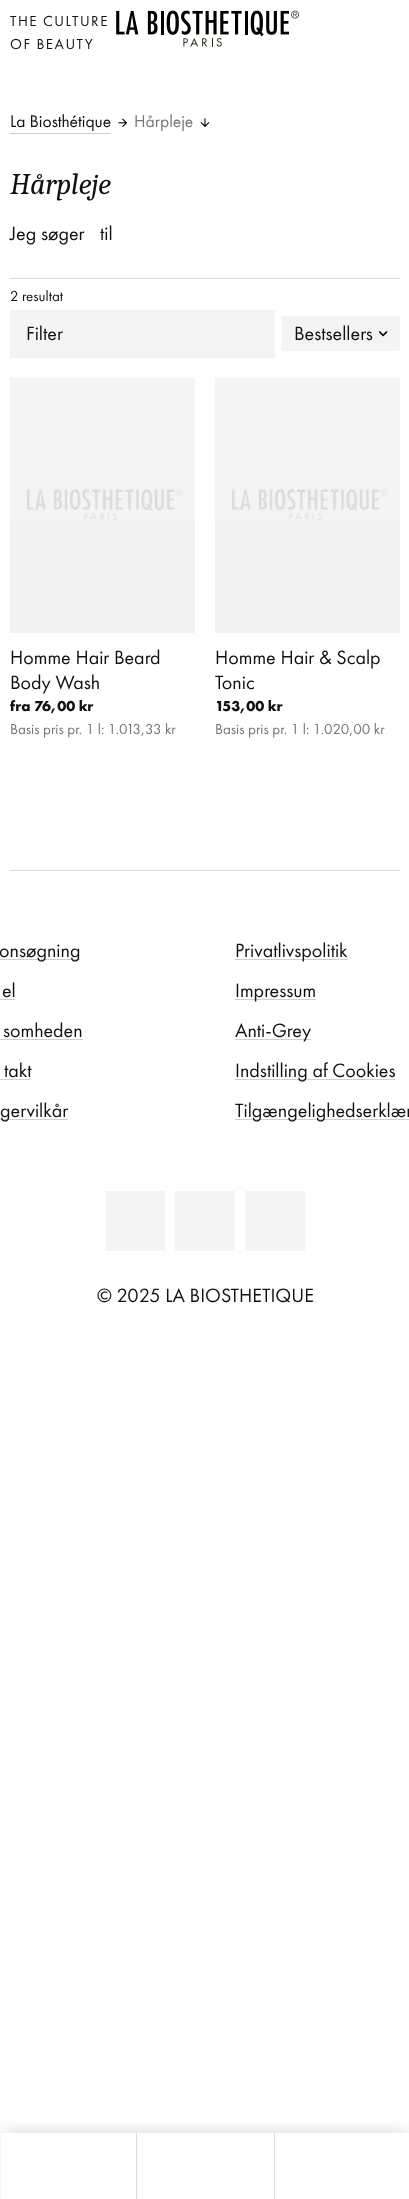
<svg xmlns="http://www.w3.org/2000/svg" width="409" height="2199">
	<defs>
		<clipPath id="clip1"><rect x="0" y="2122" width="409" height="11" /></clipPath>
	</defs>
	<rect width="100%" height="100%" fill="#FFFFFF" />
	<g font-family="Futura PT" font-size="15" letter-spacing="1.5" fill="#111111">
		<text x="10" y="26">THE CULTURE</text>
		<text x="10" y="49">OF BEAUTY</text>
	</g>
	<image x="116" y="10" width="183" height="37" href="assets/img1.png" />
	<text x="10" y="127" font-family="Futura PT" font-size="17.5" fill="#111111">La Biosthétique</text>
	<rect x="10" y="133" width="101" height="1" fill="#CFCFCF" />
	<image x="118" y="118" width="10" height="10" href="assets/img2.png" />
	<text x="134" y="127" font-family="Futura PT" font-size="17.5" fill="#767676">Hårpleje</text>
	<image x="200" y="118" width="10" height="9" href="assets/img3.png" />
	<text x="10" y="194" font-family="Caladea" font-size="30" font-style="italic" letter-spacing="-0.25" fill="#111111">Hårpleje</text>
	<g font-family="Futura PT" font-size="20" fill="#111111">
		<text x="10" y="240">Jeg søger</text>
		<text x="100" y="240">til</text>
	</g>
	<rect x="10" y="278" width="390" height="1" fill="#DDDDDD" />
	<text x="10" y="301" font-family="Futura PT" font-size="15" fill="#111111">2 resultat</text>
	<rect x="10" y="310" width="265" height="48" fill="#F4F4F4" />
	<text x="26" y="340" font-family="Futura PT" font-size="20" fill="#111111">Filter</text>
	<rect x="281" y="316" width="119" height="35" rx="2.5" fill="#F4F4F4" />
	<text x="294" y="340" font-family="Futura PT" font-size="20" fill="#111111">Bestsellers</text>
	<image x="379" y="331" width="9" height="6" href="assets/img4.png" />
	<rect x="10" y="520" width="185" height="113" fill="#F2F2F2" />
	<image x="10" y="377" width="185" height="143" href="assets/img5.png" />
	<image x="56" y="490" width="125" height="30" href="assets/img6.png" />
	<g font-family="Futura PT" font-size="20" fill="#111111">
		<text x="10" y="664">Homme Hair Beard</text>
		<text x="10" y="689">Body Wash</text>
	</g>
	<text x="10" y="711" font-family="Futura PT" font-size="15" font-weight="700" fill="#111111">fra 76,00 kr</text>
	<text x="10" y="734" font-family="Futura PT" font-size="15" fill="#767676">Basis pris pr. 1 l: 1.013,33 kr</text>
	<rect x="215" y="520" width="185" height="113" fill="#F2F2F2" />
	<image x="215" y="377" width="185" height="143" href="assets/img5.png" />
	<image x="261" y="490" width="125" height="30" href="assets/img6.png" />
	<g font-family="Futura PT" font-size="20" fill="#111111">
		<text x="215" y="664">Homme Hair &amp; Scalp</text>
		<text x="215" y="689">Tonic</text>
	</g>
	<text x="215" y="711" font-family="Futura PT" font-size="15" font-weight="700" fill="#111111">153,00 kr</text>
	<text x="215" y="734" font-family="Futura PT" font-size="15" fill="#767676">Basis pris pr. 1 l: 1.020,00 kr</text>
	<rect x="10" y="870" width="390" height="1" fill="#DDDDDD" />
	<text x="-1" y="957" font-family="Futura PT" font-size="20" fill="#111111">onsøgning</text>
	<rect x="0" y="959" width="80" height="1" fill="#111111" fill-opacity="0.2" />
	<text x="235" y="957" font-family="Futura PT" font-size="20" fill="#111111">Privatlivspolitik</text>
	<rect x="235" y="959" width="113" height="1" fill="#111111" fill-opacity="0.2" />
	<text x="2" y="997" font-family="Futura PT" font-size="20" fill="#111111">el</text>
	<rect x="0" y="999" width="15" height="1" fill="#CFCFCF" />
	<text x="235" y="997" font-family="Futura PT" font-size="20" fill="#111111">Impressum</text>
	<rect x="235" y="999" width="81" height="1" fill="#111111" fill-opacity="0.2" />
	<text x="3" y="1037" font-family="Futura PT" font-size="20" fill="#111111">somheden</text>
	<rect x="0" y="1039" width="83" height="1" fill="#CFCFCF" />
	<text x="235" y="1037" font-family="Futura PT" font-size="20" fill="#111111">Anti-Grey</text>
	<rect x="235" y="1039" width="76" height="1" fill="#111111" fill-opacity="0.2" />
	<text x="4" y="1077" font-family="Futura PT" font-size="20" fill="#111111">takt</text>
	<rect x="0" y="1079" width="31" height="1" fill="#CFCFCF" />
	<text x="235" y="1077" font-family="Futura PT" font-size="20" fill="#111111">Indstilling af Cookies</text>
	<rect x="235" y="1079" width="160" height="1" fill="#111111" fill-opacity="0.2" />
	<text x="0" y="1117" font-family="Futura PT" font-size="20" fill="#111111">gervilkår</text>
	<rect x="0" y="1119" width="68" height="1" fill="#111111" fill-opacity="0.2" />
	<text x="235" y="1117" font-family="Futura PT" font-size="20" fill="#111111">Tilgængelighedserklær</text>
	<rect x="235" y="1119" width="174" height="1" fill="#111111" fill-opacity="0.2" />
	<rect x="105" y="1191" width="60" height="60" fill="#F4F4F4" />
	<rect x="175" y="1191" width="60" height="60" fill="#F4F4F4" />
	<rect x="245" y="1191" width="60" height="60" fill="#F4F4F4" />
	<text x="97" y="1302" font-family="Futura PT" font-size="20" fill="#111111">© 2025 LA BIOSTHETIQUE</text>
	<g clip-path="url(#clip1)">
		<rect x="3" y="2135" width="405" height="63" fill="#000000" fill-opacity="0.2" filter="blur(10px)" />
	</g>
	<rect x="0" y="2133" width="1" height="66" fill="#F7F7F7" />
	<rect x="136" y="2133" width="1" height="66" fill="#DDDDDD" />
	<rect x="274" y="2133" width="1" height="66" fill="#DDDDDD" />
</svg>
